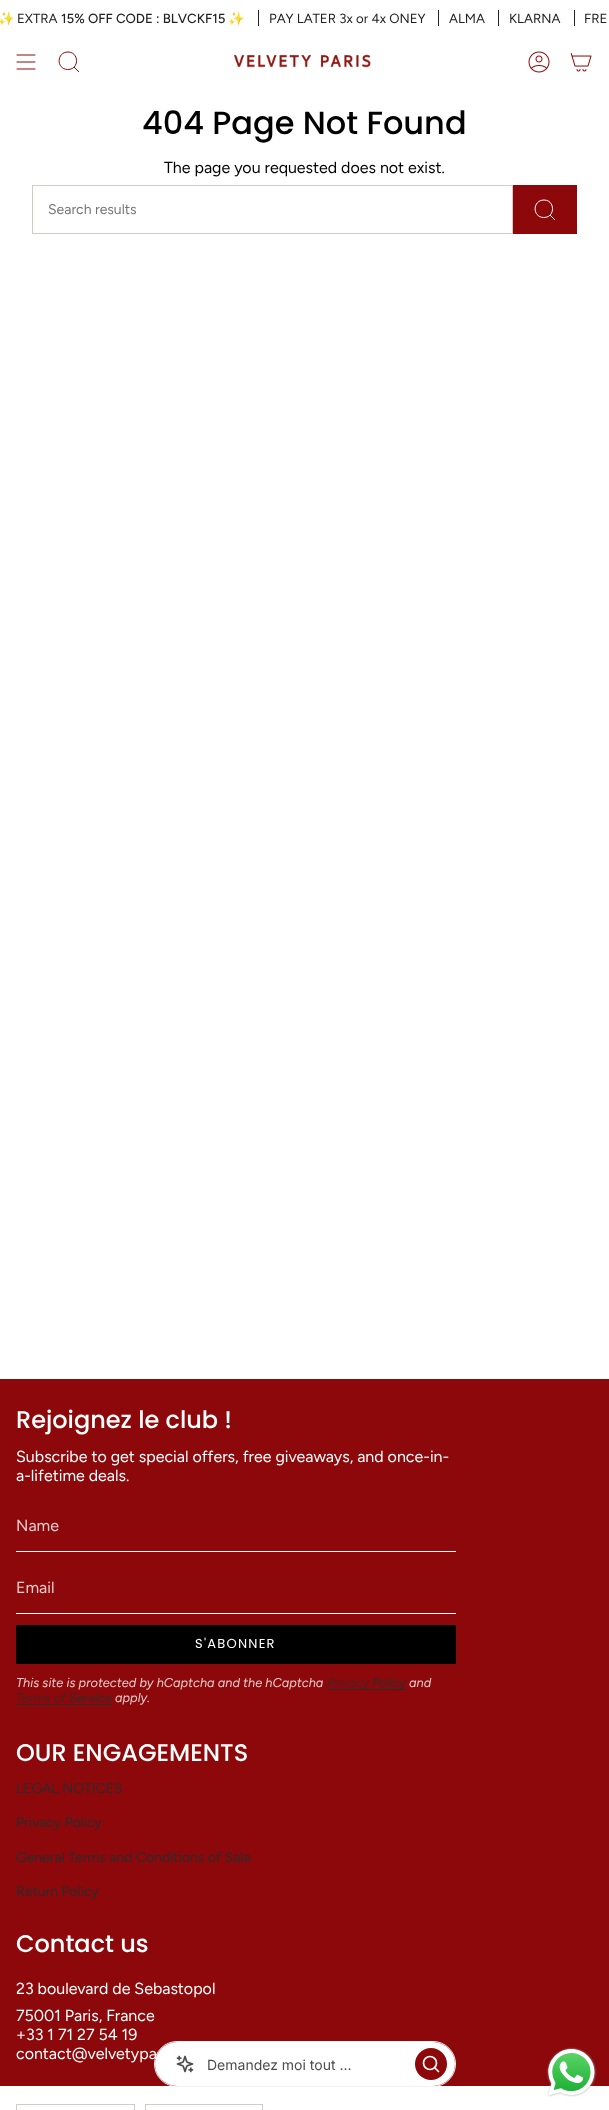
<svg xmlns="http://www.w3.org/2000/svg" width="609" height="2110">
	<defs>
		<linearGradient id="g1" gradientUnits="userSpaceOnUse" x1="327" y1="1682" x2="406" y2="1682"><stop offset="0" stop-color="#462123" /><stop offset="0.5" stop-color="#462123" /><stop offset="0.5" stop-color="#282C2E" /><stop offset="1" stop-color="#282C2E" /></linearGradient>
		<linearGradient id="g2" gradientUnits="userSpaceOnUse" x1="16" y1="1697" x2="112" y2="1697"><stop offset="0" stop-color="#462123" /><stop offset="0.5" stop-color="#462123" /><stop offset="0.5" stop-color="#282C2E" /><stop offset="1" stop-color="#282C2E" /></linearGradient>
	</defs>
	<rect width="100%" height="100%" fill="#FFFFFF" />
	<text x="-2" y="23" font-family="Noto Color Emoji" font-size="13.25" fill="#212121">✨</text>
	<text x="17" y="23" font-family="Figtree" font-size="13.25" fill="#212121">EXTRA</text>
	<text x="61" y="23" font-family="Figtree" font-size="13.25" font-weight="500" fill="#212121">15% OFF CODE : BLVCKF15</text>
	<text x="228" y="23" font-family="Noto Color Emoji" font-size="13.25" fill="#212121">✨</text>
	<rect x="258" y="10" width="1" height="16" fill="#212121" />
	<text x="269" y="23" font-family="Figtree" font-size="13.25" fill="#212121">PAY LATER 3x or 4x ONEY</text>
	<rect x="438" y="10" width="1" height="16" fill="#212121" />
	<text x="449" y="23" font-family="Figtree" font-size="13.25" fill="#212121">ALMA</text>
	<rect x="498" y="10" width="1" height="16" fill="#212121" />
	<text x="509" y="23" font-family="Figtree" font-size="13.25" fill="#212121">KLARNA</text>
	<rect x="574" y="10" width="1" height="16" fill="#212121" />
	<text x="584" y="23" font-family="Figtree" font-size="13.25" fill="#212121">FRE</text>
	<path d="M17 55H35M17 62H35M17 69H35" fill="none" stroke="#8D080A" stroke-linecap="round" stroke-linejoin="round" />
	<path d="M68 52C79.5 52 79.5 70 67.5 69.5C56 69 56.5 52 68 52ZM74 67L79 72" fill="none" stroke="#8D080A" />
	<image x="234" y="54" width="137" height="14" href="assets/img1.png" />
	<image x="528" y="51" width="22" height="22" href="assets/img2.png" />
	<image x="570" y="53" width="22" height="19" href="assets/img3.png" />
	<text x="142" y="134" font-family="Poppins" font-size="32" font-weight="500" fill="#000000">404 Page Not Found</text>
	<text x="164" y="173" font-family="Figtree" font-size="16" fill="#000000">The page you requested does not exist.</text>
	<rect x="32.5" y="185.5" width="480" height="48" fill="none" stroke="#D1CDC4" />
	<text x="48" y="214" font-family="Figtree" font-size="14" fill="#757575">Search results</text>
	<rect x="513" y="185" width="64" height="49" fill="#8D080A" />
	<path d="M544 200C555.5 200 555.5 218 543.5 217.5C532 217 532.5 200 544 200ZM550 215L555 220" fill="none" stroke="#FFFFFF" />
	<rect x="0" y="1379" width="609" height="707" fill="#8D080A" />
	<text x="16" y="1428" font-family="Poppins" font-size="24" font-weight="500" fill="#FFFFFF">Rejoignez le club !</text>
	<g font-family="Figtree" font-size="16" fill="#FFFFFF">
		<text x="16" y="1462">Subscribe to get special offers, free giveaways, and once-in-</text>
		<text x="16" y="1481">a-lifetime deals.</text>
	</g>
	<rect x="16" y="1551" width="440" height="1" fill="#FFFFFF" />
	<text x="16" y="1531" font-family="Figtree" font-size="16" fill="#E8CECE">Name</text>
	<rect x="16" y="1613" width="440" height="1" fill="#FFFFFF" />
	<text x="16" y="1593" font-family="Figtree" font-size="16" fill="#E8CECE">Email</text>
	<rect x="16" y="1625" width="440" height="39" fill="#000000" />
	<text x="195" y="1648" font-family="Poppins" font-size="13" letter-spacing="1.25" fill="#FFFFFF">S'ABONNER</text>
	<text x="16" y="1687" font-family="Figtree" font-size="12.8" font-style="italic" fill="#E8CECE">This site is protected by hCaptcha and the hCaptcha</text>
	<text x="327" y="1687" font-family="Figtree" font-size="12.8" font-style="italic" fill="url(#g1)">Privacy Policy</text>
	<rect x="327" y="1689" width="79" height="1" fill="#282C2E" />
	<text x="409" y="1687" font-family="Figtree" font-size="12.8" font-style="italic" fill="#E8CECE">and</text>
	<text x="16" y="1702" font-family="Figtree" font-size="12.8" font-style="italic" fill="url(#g2)">Terms of Service</text>
	<rect x="16" y="1704" width="96" height="1" fill="#282C2E" />
	<text x="115" y="1702" font-family="Figtree" font-size="12.8" font-style="italic" fill="#E8CECE">apply.</text>
	<text x="16" y="1761" font-family="Poppins" font-size="24" font-weight="500" fill="#FFFFFF">OUR ENGAGEMENTS</text>
	<g font-family="Figtree" font-size="14" fill="#282C2E">
		<text x="16" y="1793">LEGAL NOTICES</text>
		<text x="16" y="1827">Privacy Policy</text>
		<text x="16" y="1862">General Terms and Conditions of Sale</text>
		<text x="16" y="1896">Return Policy</text>
	</g>
	<text x="16" y="1952" font-family="Poppins" font-size="24" font-weight="500" fill="#FFFFFF">Contact us</text>
	<g font-family="Figtree" font-size="16" fill="#FFFFFF">
		<text x="16" y="1994">23 boulevard de Sebastopol</text>
		<text x="16" y="2021">75001 Paris, France</text>
		<text x="16" y="2040">+33 1 71 27 54 19</text>
		<text x="16" y="2059">contact@velvetypa</text>
	</g>
	<rect x="16.5" y="2104.5" width="118" height="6" fill="none" stroke="#D1CDC4" />
	<rect x="145.5" y="2104.5" width="117" height="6" fill="none" stroke="#D1CDC4" />
	<rect x="154.5" y="2041.5" width="301" height="45" rx="22.5" fill="none" stroke="#F2F2F2" />
	<rect x="155" y="2042" width="300" height="44" rx="22" fill="#FFFFFF" />
	<image x="176" y="2055" width="18" height="18" href="assets/img4.png" />
	<text x="207" y="2070" font-family="Inter" font-size="14" fill="#4D4D4D">Demandez moi tout ...</text>
	<circle cx="431" cy="2064" r="16" fill="#8D080A" />
	<circle cx="430" cy="2063" r="6.5" fill="none" stroke="#FFFFFF" stroke-width="1.7" />
	<path d="M438.5 2071.5L435 2068" fill="none" stroke="#FFFFFF" stroke-width="1.7" stroke-linecap="round" stroke-linejoin="round" />
	<image x="546" y="2047" width="51" height="50" href="assets/img5.png" />
</svg>
